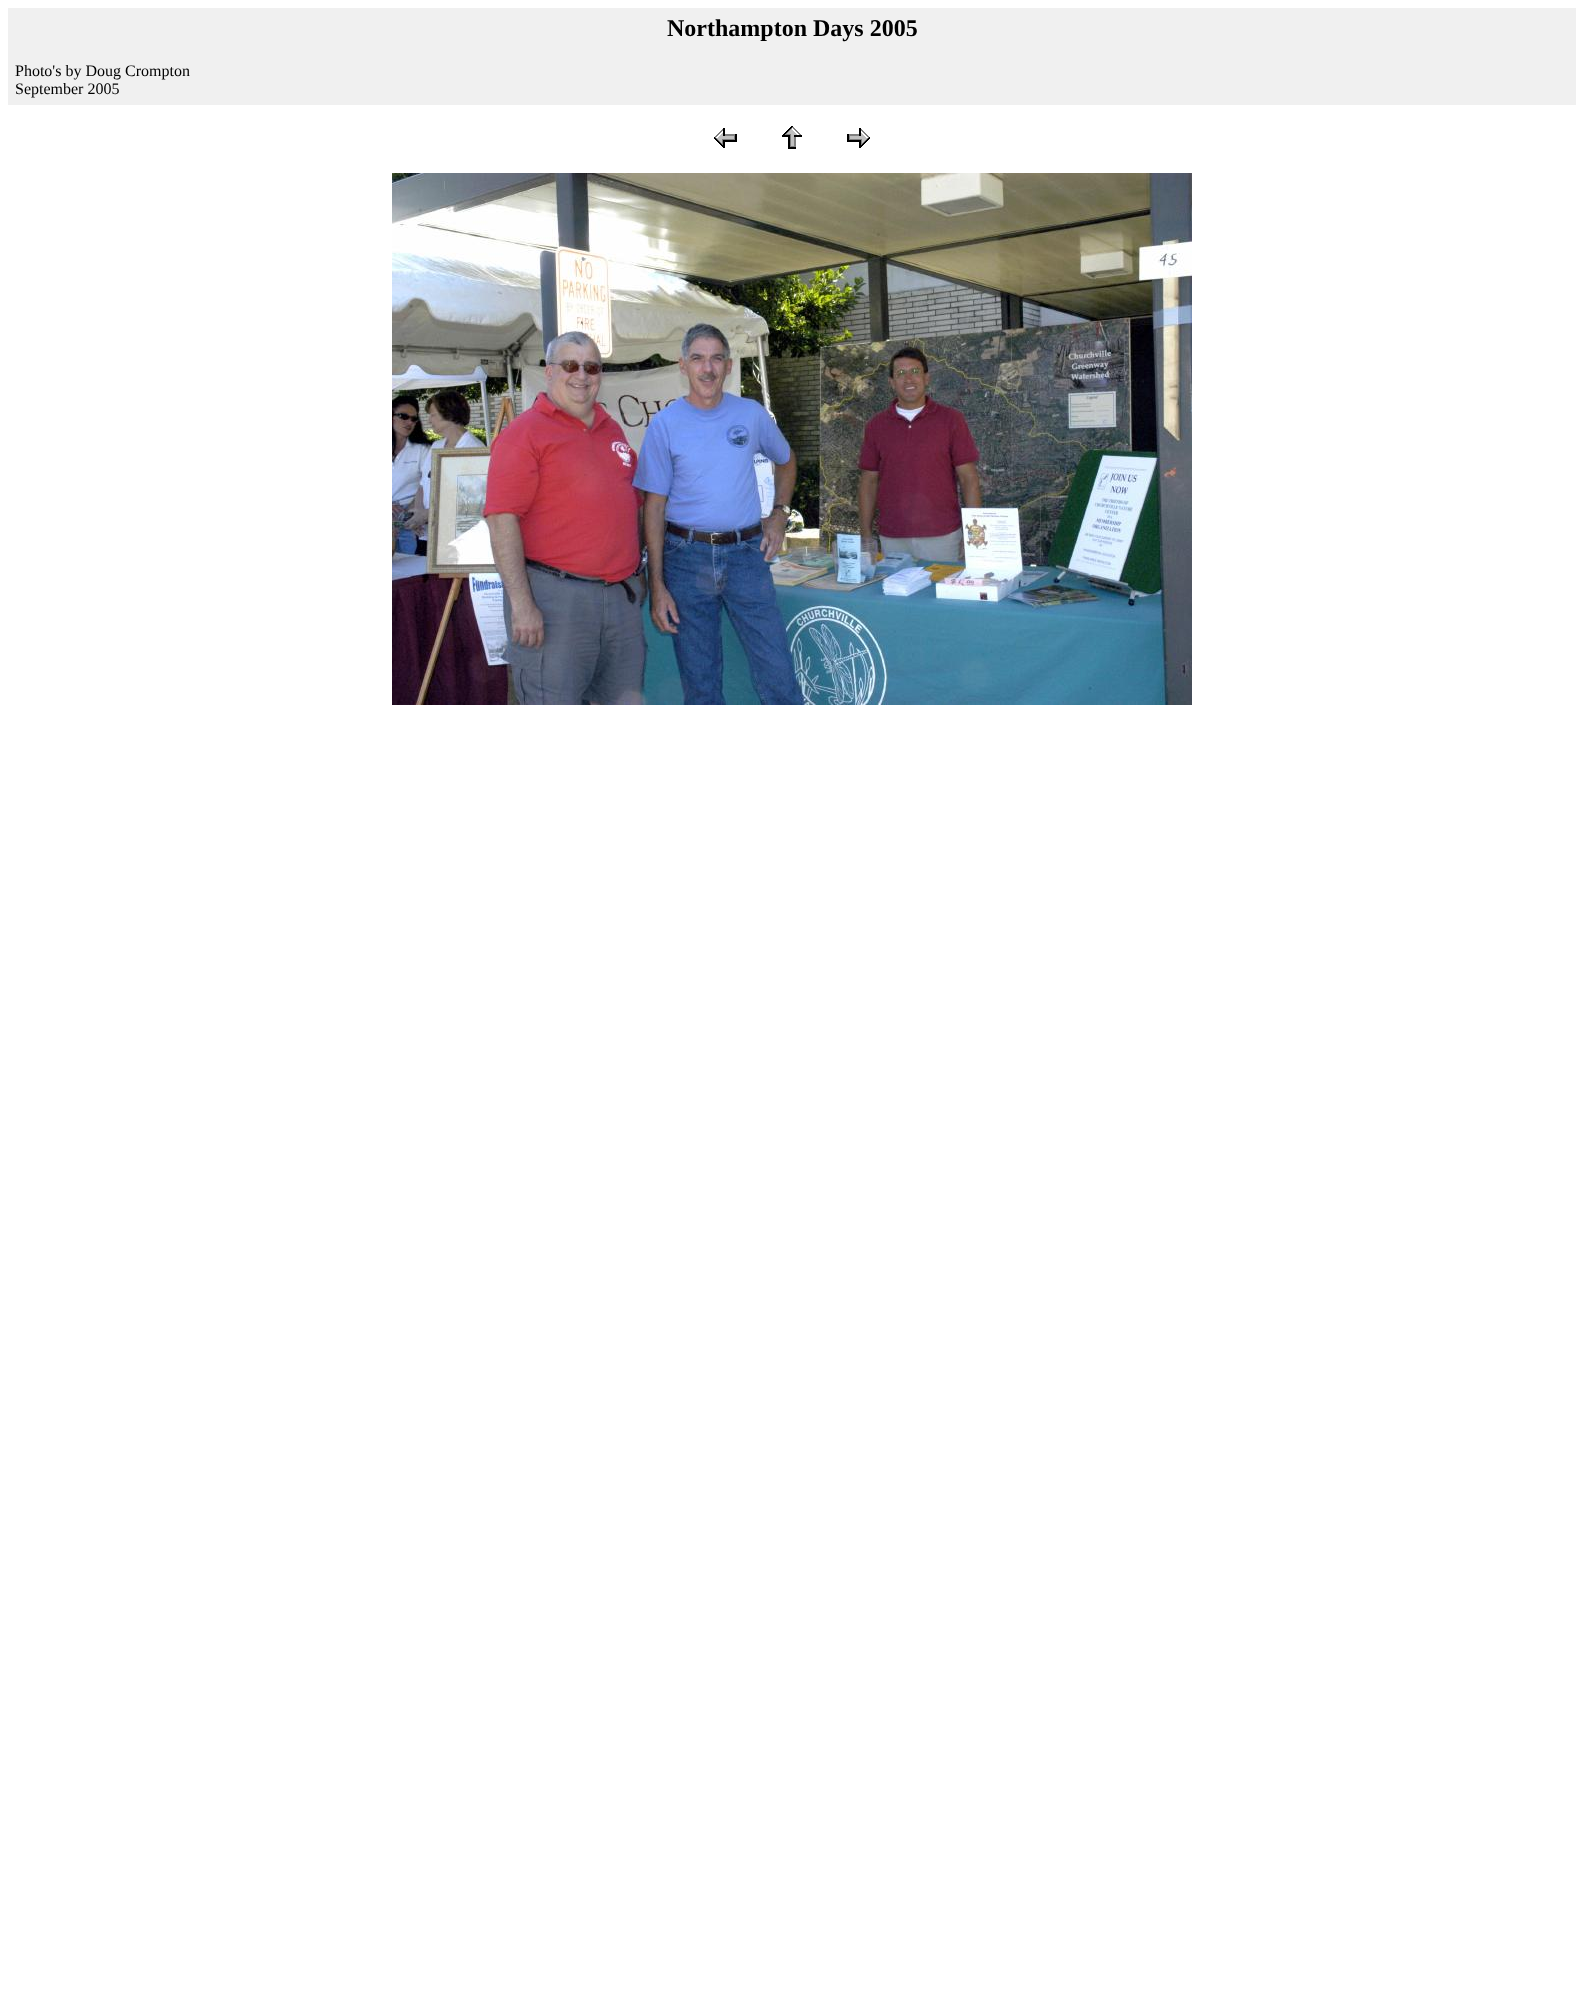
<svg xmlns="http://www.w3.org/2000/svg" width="1584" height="2016">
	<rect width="100%" height="100%" fill="#FFFFFF" />
	<rect x="8" y="8" width="1568" height="97" fill="#F0F0F0" />
	<text x="667" y="36" font-family="Liberation Serif" font-size="24" font-weight="700" fill="#000000">Northampton Days 2005</text>
	<g font-family="Liberation Serif" font-size="16" fill="#000000">
		<text x="15" y="76">Photo's by Doug Crompton</text>
		<text x="15" y="94">September 2005</text>
	</g>
	<image x="714" y="128" width="23" height="20" href="assets/img1.png" />
	<image x="782" y="126" width="20" height="23" href="assets/img2.png" />
	<image x="847" y="128" width="23" height="20" href="assets/img3.png" />
	<image x="392" y="173" width="800" height="532" href="assets/img4.png" />
</svg>
